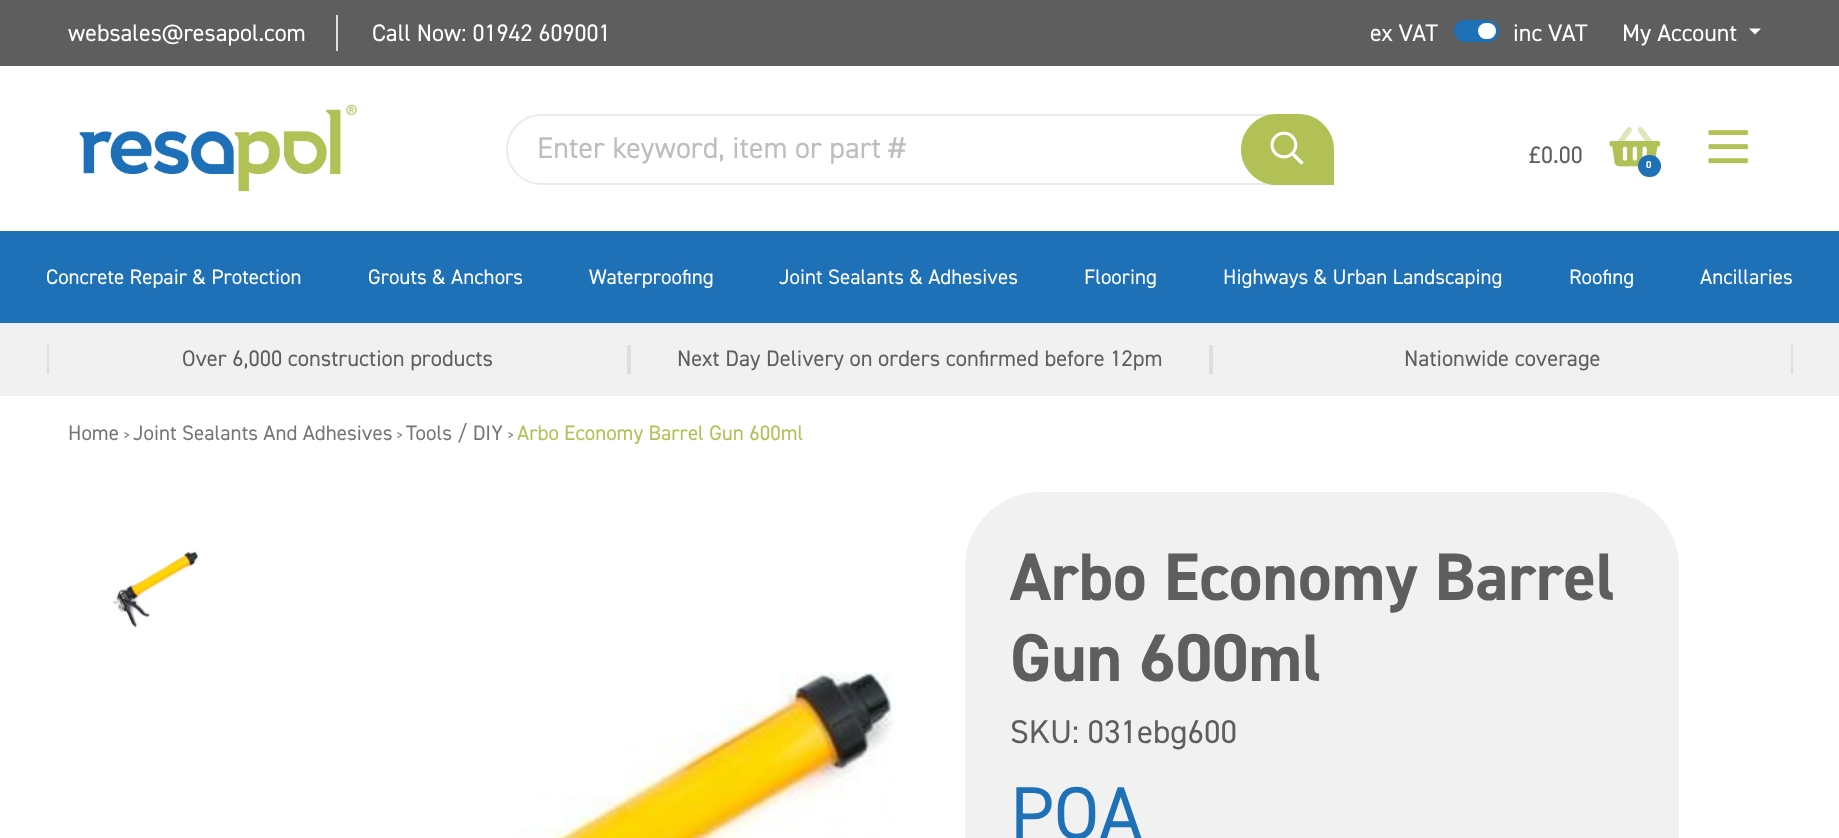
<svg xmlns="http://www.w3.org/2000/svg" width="1839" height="838">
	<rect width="100%" height="100%" fill="#FFFFFF" />
	<rect x="0" y="0" width="1839" height="66" fill="#5F5E5E" />
	<rect x="336" y="15" width="2" height="36" fill="#DEDEDE" />
	<g font-family="'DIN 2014'" font-size="24" fill="#FFFFFF">
		<text x="68" y="41">websales@resapol.com</text>
		<text x="372" y="41">Call Now: 01942 609001</text>
		<text x="1370" y="41">ex VAT</text>
	</g>
	<rect x="1454" y="20" width="45" height="22" rx="11" fill="#1F71B7" />
	<rect x="1478" y="23" width="18" height="16" rx="8" fill="#FFFFFF" />
	<g font-family="'DIN 2014'" font-size="24" fill="#FFFFFF">
		<text x="1513" y="41">inc VAT</text>
		<text x="1622" y="41">My Account</text>
	</g>
	<path d="M1749 28.5H1761L1755 34.5Z" fill="#FFFFFF" />
	<image x="79" y="104" width="278" height="88" href="assets/img1.png" />
	<path d="M541.5 115H1298.5C1317.5 115 1333 130.5 1333 149.5V184H541.5C522.5 184 507 168.5 507 149.5C507 130.5 522.5 115 541.5 115Z" fill="none" stroke="#EBEBEB" stroke-width="2" />
	<text x="537" y="158" font-family="'DIN 2014'" font-size="30" fill="#BEBEBE">Enter keyword, item or part #</text>
	<path d="M1276.5 114H1298.5C1318 114 1334 130 1334 149.5V185H1276.5C1257 185 1241 169 1241 149.5C1241 130 1257 114 1276.5 114Z" fill="#B2C156" />
	<image x="1270" y="131" width="34" height="34" href="assets/img2.png" />
	<text x="1529" y="163" font-family="'DIN 2014'" font-size="24" fill="#5F5E5E">£0.00</text>
	<image x="1617" y="127" width="35" height="14" href="assets/img3.png" />
	<image x="1609" y="141" width="52" height="26" href="assets/img4.png" />
	<rect x="1638" y="155" width="23" height="22" rx="11" fill="#1F71B7" />
	<text x="1646" y="168" font-family="'DIN 2014'" font-size="10" font-weight="700" fill="#FFFFFF">0</text>
	<image x="1708" y="130" width="40" height="34" href="assets/img5.png" />
	<rect x="0" y="231" width="1839" height="92" fill="#1F71B7" />
	<g font-family="'DIN 2014'" font-size="21" fill="#FFFFFF">
		<text x="46" y="284">Concrete Repair &amp; Protection</text>
		<text x="368" y="284">Grouts &amp; Anchors</text>
		<text x="589" y="284">Waterproofing</text>
		<text x="779" y="284">Joint Sealants &amp; Adhesives</text>
		<text x="1084" y="284">Flooring</text>
		<text x="1223" y="284">Highways &amp; Urban Landscaping</text>
		<text x="1569" y="284">Roofing</text>
		<text x="1700" y="284">Ancillaries</text>
	</g>
	<rect x="0" y="323" width="1839" height="73" fill="#F1F1F1" />
	<rect x="627" y="345" width="4" height="29" fill="#DEDEDE" />
	<rect x="47" y="345" width="2" height="29" fill="#DEDEDE" />
	<text x="182" y="366" font-family="'DIN 2014'" font-size="22.5" fill="#5F5E5E">Over 6,000 construction products</text>
	<rect x="1209" y="345" width="4" height="29" fill="#DEDEDE" />
	<text x="677" y="366" font-family="'DIN 2014'" font-size="22.5" fill="#5F5E5E">Next Day Delivery on orders confirmed before 12pm</text>
	<rect x="1791" y="345" width="2" height="29" fill="#DEDEDE" />
	<text x="1404" y="366" font-family="'DIN 2014'" font-size="22.5" fill="#5F5E5E">Nationwide coverage</text>
	<text x="68" y="440" font-family="'DIN 2014'" font-size="21" fill="#767676">Home</text>
	<text x="123" y="440" font-family="'DIN 2014'" font-size="14" fill="#767676">&gt;</text>
	<text x="133" y="440" font-family="'DIN 2014'" font-size="21" fill="#767676">Joint Sealants And Adhesives</text>
	<text x="396" y="440" font-family="'DIN 2014'" font-size="14" fill="#767676">&gt;</text>
	<text x="406" y="440" font-family="'DIN 2014'" font-size="21" fill="#767676">Tools / DIY</text>
	<text x="507" y="440" font-family="'DIN 2014'" font-size="14" fill="#767676">&gt;</text>
	<text x="517" y="440" font-family="'DIN 2014'" font-size="21" fill="#B2C156">Arbo Economy Barrel Gun 600ml</text>
	<image x="112" y="551" width="87" height="77" href="assets/img6.png" />
	<image x="515" y="672" width="382" height="166" href="assets/img7.png" />
	<rect x="965" y="492" width="714" height="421" rx="75" fill="#F1F1F1" />
	<g font-family="'DIN 2014'" font-size="67.5" font-weight="700" fill="#5F5E5E">
		<text x="1010" y="600">Arbo Economy Barrel</text>
		<text x="1010" y="681">Gun 600ml</text>
	</g>
	<text x="1010" y="743" font-family="'DIN 2014'" font-size="33" fill="#5F5E5E">SKU: 031ebg600</text>
	<text x="1010" y="839" font-family="'DIN 2014'" font-size="75" fill="#1F71B7">POA</text>
</svg>
